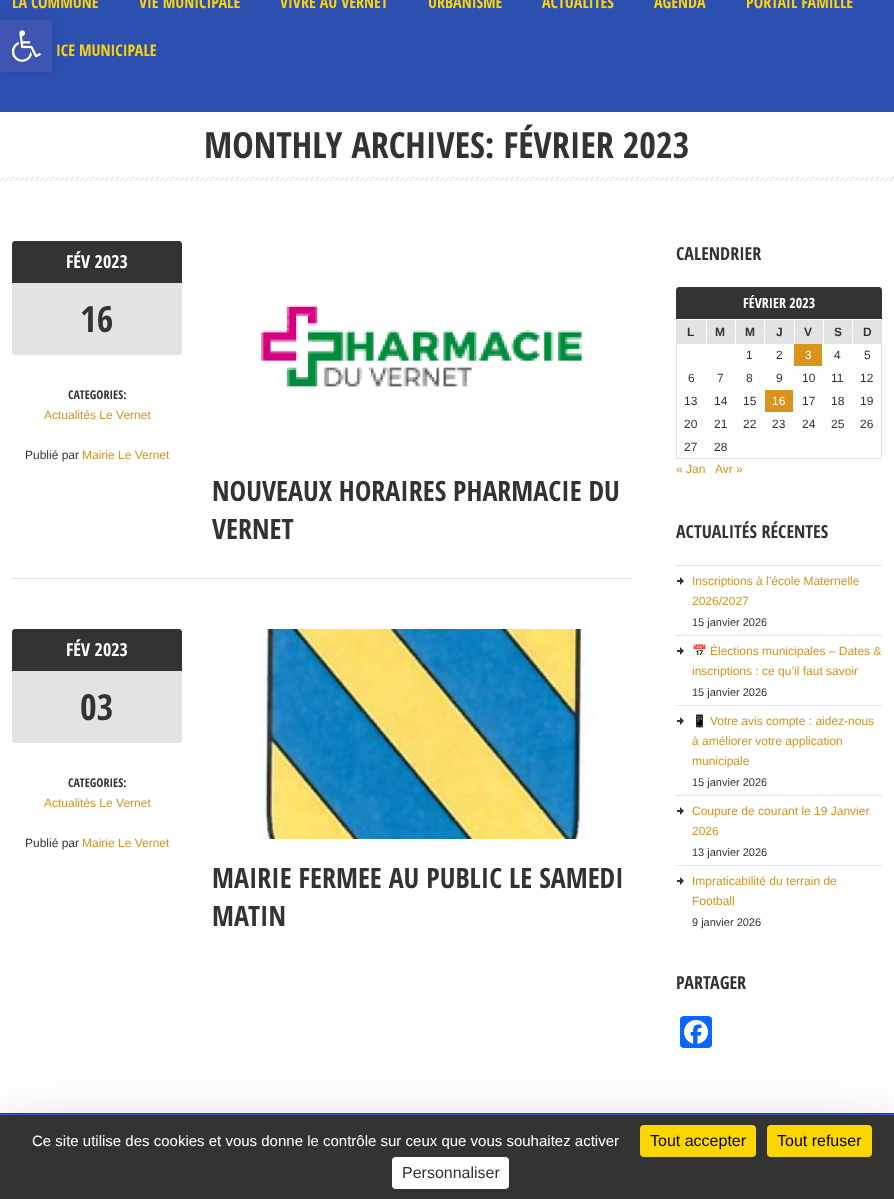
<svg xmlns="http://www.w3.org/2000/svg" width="894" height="1199">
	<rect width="100%" height="100%" fill="#FFFFFF" />
	<rect x="0" y="109" width="894" height="3" fill="#2C50B0" />
	<rect x="0" y="0" width="894" height="109" fill="#2D4FB0" />
	<g font-family="Open Sans Condensed" font-size="16" font-weight="700" fill="#F9D30E">
		<text x="12" y="8">LA COMMUNE</text>
		<text x="139" y="8">VIE MUNICIPALE</text>
		<text x="280" y="8">VIVRE AU VERNET</text>
		<text x="428" y="8">URBANISME</text>
		<text x="542" y="8">ACTUALITÉS</text>
		<text x="654" y="8">AGENDA</text>
		<text x="746" y="8">PORTAIL FAMILLE</text>
		<text x="56" y="56">ICE MUNICIPALE</text>
	</g>
	<text x="204" y="158" font-family="Open Sans Condensed" font-size="36" font-weight="700" fill="#333333">MONTHLY ARCHIVES: FÉVRIER 2023</text>
	<image x="0" y="177" width="894" height="4" href="assets/img1.png" />
	<rect x="12" y="578" width="621" height="1" fill="#E2E3E4" />
	<rect x="12" y="241" width="170" height="114" rx="3" fill="#E2E3E4" />
	<path d="M15 241H179C180.5 241 182 242.5 182 244V283H12V244C12 242.5 13.5 241 15 241Z" fill="#333333" />
	<text x="66" y="268" font-family="Open Sans Condensed" font-size="18" font-weight="700" fill="#FFFFFF">FÉV 2023</text>
	<text x="80" y="332" font-family="Open Sans Condensed" font-size="36" font-weight="700" fill="#333333">16</text>
	<text x="68" y="399" font-family="Open Sans Condensed" font-size="12" font-weight="700" fill="#333333">CATEGORIES:</text>
	<text x="44" y="419" font-family="Liberation Sans" font-size="12" fill="#DB931B">Actualités Le Vernet</text>
	<text x="25" y="459" font-family="Liberation Sans" font-size="12" fill="#333333">Publié par</text>
	<text x="82" y="459" font-family="Liberation Sans" font-size="12" fill="#DB931B">Mairie Le Vernet</text>
	<image x="258" y="304" width="324" height="85" href="assets/img2.png" />
	<g font-family="Open Sans Condensed" font-size="28" font-weight="700" fill="#333333">
		<text x="212" y="501">NOUVEAUX HORAIRES PHARMACIE DU</text>
		<text x="212" y="539">VERNET</text>
	</g>
	<rect x="12" y="629" width="170" height="114" rx="3" fill="#E2E3E4" />
	<path d="M15 629H179C180.5 629 182 630.5 182 632V671H12V632C12 630.5 13.5 629 15 629Z" fill="#333333" />
	<text x="66" y="656" font-family="Open Sans Condensed" font-size="18" font-weight="700" fill="#FFFFFF">FÉV 2023</text>
	<text x="80" y="720" font-family="Open Sans Condensed" font-size="36" font-weight="700" fill="#333333">03</text>
	<text x="68" y="787" font-family="Open Sans Condensed" font-size="12" font-weight="700" fill="#333333">CATEGORIES:</text>
	<text x="44" y="807" font-family="Liberation Sans" font-size="12" fill="#DB931B">Actualités Le Vernet</text>
	<text x="25" y="847" font-family="Liberation Sans" font-size="12" fill="#333333">Publié par</text>
	<text x="82" y="847" font-family="Liberation Sans" font-size="12" fill="#DB931B">Mairie Le Vernet</text>
	<image x="259" y="629" width="337" height="210" href="assets/img3.png" />
	<g font-family="Open Sans Condensed" font-size="28" font-weight="700" fill="#333333">
		<text x="212" y="888">MAIRIE FERMEE AU PUBLIC LE SAMEDI</text>
		<text x="212" y="926">MATIN</text>
	</g>
	<text x="676" y="260" font-family="Open Sans Condensed" font-size="18" font-weight="700" fill="#333333">CALENDRIER</text>
	<path d="M679 287H879C880.5 287 882 288.5 882 290V319H676V290C676 288.5 677.5 287 679 287Z" fill="#333333" />
	<text x="743" y="308" font-family="Open Sans Condensed" font-size="14" font-weight="700" fill="#FFFFFF">FÉVRIER 2023</text>
	<rect x="676" y="320" width="206" height="1" fill="#E2E3E4" />
	<rect x="676" y="321" width="30" height="22" fill="#E2E3E4" />
	<text x="687" y="336" font-family="Liberation Sans" font-size="12" font-weight="700" fill="#333333">L</text>
	<rect x="707" y="321" width="28" height="22" fill="#E2E3E4" />
	<text x="715" y="336" font-family="Liberation Sans" font-size="12" font-weight="700" fill="#333333">M</text>
	<rect x="736" y="321" width="28" height="22" fill="#E2E3E4" />
	<text x="745" y="336" font-family="Liberation Sans" font-size="12" font-weight="700" fill="#333333">M</text>
	<rect x="765" y="321" width="29" height="22" fill="#E2E3E4" />
	<text x="776" y="336" font-family="Liberation Sans" font-size="12" font-weight="700" fill="#333333">J</text>
	<rect x="795" y="321" width="28" height="22" fill="#E2E3E4" />
	<text x="804" y="336" font-family="Liberation Sans" font-size="12" font-weight="700" fill="#333333">V</text>
	<rect x="824" y="321" width="28" height="22" fill="#E2E3E4" />
	<text x="834" y="336" font-family="Liberation Sans" font-size="12" font-weight="700" fill="#333333">S</text>
	<rect x="853" y="321" width="29" height="22" fill="#E2E3E4" />
	<text x="863" y="336" font-family="Liberation Sans" font-size="12" font-weight="700" fill="#333333">D</text>
	<rect x="676" y="343" width="206" height="1" fill="#E2E3E4" />
	<rect x="881" y="343" width="1" height="116" fill="#E2E3E4" />
	<rect x="676" y="458" width="206" height="1" fill="#E2E3E4" />
	<rect x="676" y="343" width="1" height="116" fill="#E2E3E4" />
	<rect x="677" y="345" width="58" height="22" fill="#FCFDFD" />
	<rect x="736" y="345" width="28" height="22" fill="#FCFDFD" />
	<text x="746" y="359" font-family="Liberation Sans" font-size="12" fill="#333333">1</text>
	<rect x="765" y="345" width="29" height="22" fill="#FCFDFD" />
	<text x="776" y="359" font-family="Liberation Sans" font-size="12" fill="#333333">2</text>
	<rect x="795" y="345" width="28" height="22" fill="#FCFDFD" />
	<rect x="794" y="344" width="28" height="22" fill="#DB931B" />
	<text x="805" y="359" font-family="Liberation Sans" font-size="12" fill="#FFFFFF">3</text>
	<rect x="824" y="345" width="28" height="22" fill="#FCFDFD" />
	<text x="834" y="359" font-family="Liberation Sans" font-size="12" fill="#333333">4</text>
	<rect x="853" y="345" width="28" height="22" fill="#FCFDFD" />
	<text x="864" y="359" font-family="Liberation Sans" font-size="12" fill="#333333">5</text>
	<rect x="677" y="368" width="29" height="22" fill="#FCFDFD" />
	<text x="688" y="382" font-family="Liberation Sans" font-size="12" fill="#333333">6</text>
	<rect x="707" y="368" width="28" height="22" fill="#FCFDFD" />
	<text x="717" y="382" font-family="Liberation Sans" font-size="12" fill="#333333">7</text>
	<rect x="736" y="368" width="28" height="22" fill="#FCFDFD" />
	<text x="746" y="382" font-family="Liberation Sans" font-size="12" fill="#333333">8</text>
	<rect x="765" y="368" width="29" height="22" fill="#FCFDFD" />
	<text x="776" y="382" font-family="Liberation Sans" font-size="12" fill="#333333">9</text>
	<rect x="795" y="368" width="28" height="22" fill="#FCFDFD" />
	<text x="802" y="382" font-family="Liberation Sans" font-size="12" fill="#333333">10</text>
	<rect x="824" y="368" width="28" height="22" fill="#FCFDFD" />
	<text x="831" y="382" font-family="Liberation Sans" font-size="12" fill="#333333">11</text>
	<rect x="853" y="368" width="28" height="22" fill="#FCFDFD" />
	<text x="860" y="382" font-family="Liberation Sans" font-size="12" fill="#333333">12</text>
	<rect x="677" y="391" width="29" height="22" fill="#FCFDFD" />
	<text x="684" y="405" font-family="Liberation Sans" font-size="12" fill="#333333">13</text>
	<rect x="707" y="391" width="28" height="22" fill="#FCFDFD" />
	<text x="714" y="405" font-family="Liberation Sans" font-size="12" fill="#333333">14</text>
	<rect x="736" y="391" width="28" height="22" fill="#FCFDFD" />
	<text x="743" y="405" font-family="Liberation Sans" font-size="12" fill="#333333">15</text>
	<rect x="765" y="391" width="29" height="22" fill="#FCFDFD" />
	<rect x="765" y="390" width="28" height="22" fill="#DB931B" />
	<text x="772" y="405" font-family="Liberation Sans" font-size="12" fill="#FFFFFF">16</text>
	<rect x="795" y="391" width="28" height="22" fill="#FCFDFD" />
	<text x="802" y="405" font-family="Liberation Sans" font-size="12" fill="#333333">17</text>
	<rect x="824" y="391" width="28" height="22" fill="#FCFDFD" />
	<text x="831" y="405" font-family="Liberation Sans" font-size="12" fill="#333333">18</text>
	<rect x="853" y="391" width="28" height="22" fill="#FCFDFD" />
	<text x="860" y="405" font-family="Liberation Sans" font-size="12" fill="#333333">19</text>
	<rect x="677" y="414" width="29" height="22" fill="#FCFDFD" />
	<text x="684" y="428" font-family="Liberation Sans" font-size="12" fill="#333333">20</text>
	<rect x="707" y="414" width="28" height="22" fill="#FCFDFD" />
	<text x="714" y="428" font-family="Liberation Sans" font-size="12" fill="#333333">21</text>
	<rect x="736" y="414" width="28" height="22" fill="#FCFDFD" />
	<text x="743" y="428" font-family="Liberation Sans" font-size="12" fill="#333333">22</text>
	<rect x="765" y="414" width="29" height="22" fill="#FCFDFD" />
	<text x="772" y="428" font-family="Liberation Sans" font-size="12" fill="#333333">23</text>
	<rect x="795" y="414" width="28" height="22" fill="#FCFDFD" />
	<text x="802" y="428" font-family="Liberation Sans" font-size="12" fill="#333333">24</text>
	<rect x="824" y="414" width="28" height="22" fill="#FCFDFD" />
	<text x="831" y="428" font-family="Liberation Sans" font-size="12" fill="#333333">25</text>
	<rect x="853" y="414" width="28" height="22" fill="#FCFDFD" />
	<text x="860" y="428" font-family="Liberation Sans" font-size="12" fill="#333333">26</text>
	<rect x="677" y="437" width="29" height="21" fill="#FCFDFD" />
	<text x="684" y="451" font-family="Liberation Sans" font-size="12" fill="#333333">27</text>
	<rect x="707" y="437" width="28" height="21" fill="#FCFDFD" />
	<text x="714" y="451" font-family="Liberation Sans" font-size="12" fill="#333333">28</text>
	<rect x="736" y="437" width="145" height="21" fill="#FCFDFD" />
	<g font-family="Liberation Sans" font-size="12" fill="#DB931B">
		<text x="676" y="473">« Jan</text>
		<text x="715" y="473">Avr »</text>
	</g>
	<text x="676" y="538" font-family="Open Sans Condensed" font-size="18" font-weight="700" fill="#333333">ACTUALITÉS RÉCENTES</text>
	<rect x="676" y="565" width="206" height="1" fill="#E2E3E4" />
	<path d="M680 585V577L684 581Z" fill="#333333" />
	<rect x="677" y="580" width="4" height="2" fill="#333333" />
	<g font-family="Liberation Sans" font-size="12" fill="#DB931B">
		<text x="692" y="585">Inscriptions à l’école Maternelle</text>
		<text x="692" y="605">2026/2027</text>
	</g>
	<text x="692" y="626" font-family="Liberation Sans" font-size="11" fill="#333333">15 janvier 2026</text>
	<rect x="676" y="635" width="206" height="1" fill="#E2E3E4" />
	<path d="M680 655V647L684 651Z" fill="#333333" />
	<rect x="677" y="650" width="4" height="2" fill="#333333" />
	<text x="692" y="655" font-family="Noto Color Emoji" font-size="12" fill="#DB931B">📅</text>
	<g font-family="Liberation Sans" font-size="12" fill="#DB931B">
		<text x="710" y="655">Élections municipales – Dates &amp;</text>
		<text x="692" y="675">inscriptions : ce qu’il faut savoir</text>
	</g>
	<text x="692" y="696" font-family="Liberation Sans" font-size="11" fill="#333333">15 janvier 2026</text>
	<rect x="676" y="705" width="206" height="1" fill="#E2E3E4" />
	<path d="M680 725V717L684 721Z" fill="#333333" />
	<rect x="677" y="720" width="4" height="2" fill="#333333" />
	<text x="692" y="725" font-family="Noto Color Emoji" font-size="12" fill="#DB931B">📱</text>
	<g font-family="Liberation Sans" font-size="12" fill="#DB931B">
		<text x="710" y="725">Votre avis compte : aidez-nous</text>
		<text x="692" y="745">à améliorer votre application</text>
		<text x="692" y="765">municipale</text>
	</g>
	<text x="692" y="786" font-family="Liberation Sans" font-size="11" fill="#333333">15 janvier 2026</text>
	<rect x="676" y="795" width="206" height="1" fill="#E2E3E4" />
	<path d="M680 815V807L684 811Z" fill="#333333" />
	<rect x="677" y="810" width="4" height="2" fill="#333333" />
	<g font-family="Liberation Sans" font-size="12" fill="#DB931B">
		<text x="692" y="815">Coupure de courant le 19 Janvier</text>
		<text x="692" y="835">2026</text>
	</g>
	<text x="692" y="856" font-family="Liberation Sans" font-size="11" fill="#333333">13 janvier 2026</text>
	<rect x="676" y="865" width="206" height="1" fill="#E2E3E4" />
	<path d="M680 885V877L684 881Z" fill="#333333" />
	<rect x="677" y="880" width="4" height="2" fill="#333333" />
	<g font-family="Liberation Sans" font-size="12" fill="#DB931B">
		<text x="692" y="885">Impraticabilité du terrain de</text>
		<text x="692" y="905">Football</text>
	</g>
	<text x="692" y="926" font-family="Liberation Sans" font-size="11" fill="#333333">9 janvier 2026</text>
	<text x="676" y="989" font-family="Open Sans Condensed" font-size="18" font-weight="700" fill="#333333">PARTAGER</text>
	<rect x="680" y="1016" width="32" height="32" rx="4" fill="#0866FF" />
	<image x="684" y="1020" width="24" height="24" href="assets/img4.png" />
	<rect x="0" y="1114" width="894" height="1" fill="#3860CD" />
	<rect x="0" y="1113" width="894" height="1" fill="#24418F" />
	<rect x="0" y="20" width="52" height="52" fill="#000000" fill-opacity="0.1" filter="blur(5px)" />
	<rect x="0" y="20" width="52" height="52" fill="#4054B2" />
	<image x="11" y="30" width="30" height="32" href="assets/img5.png" />
	<rect x="0" y="1135" width="894" height="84" fill="#000000" fill-opacity="0.25" filter="blur(30px)" />
	<rect x="0" y="1115" width="894" height="84" fill="#333333" />
	<text x="32" y="1146" font-family="Liberation Sans" font-size="15" fill="#FFFFFF">Ce site utilise des cookies et vous donne le contrôle sur ceux que vous souhaitez activer</text>
	<rect x="640" y="1125" width="116" height="32" rx="4" fill="#FBD600" />
	<text x="650" y="1146" font-family="Liberation Sans" font-size="16" fill="#000000">Tout accepter</text>
	<rect x="767" y="1125" width="105" height="32" rx="4" fill="#FBD600" />
	<text x="777" y="1146" font-family="Liberation Sans" font-size="16" fill="#000000">Tout refuser</text>
	<rect x="392" y="1157" width="117" height="32" rx="4" fill="#FFFFFF" />
	<text x="402" y="1178" font-family="Liberation Sans" font-size="16" fill="#333333">Personnaliser</text>
</svg>
